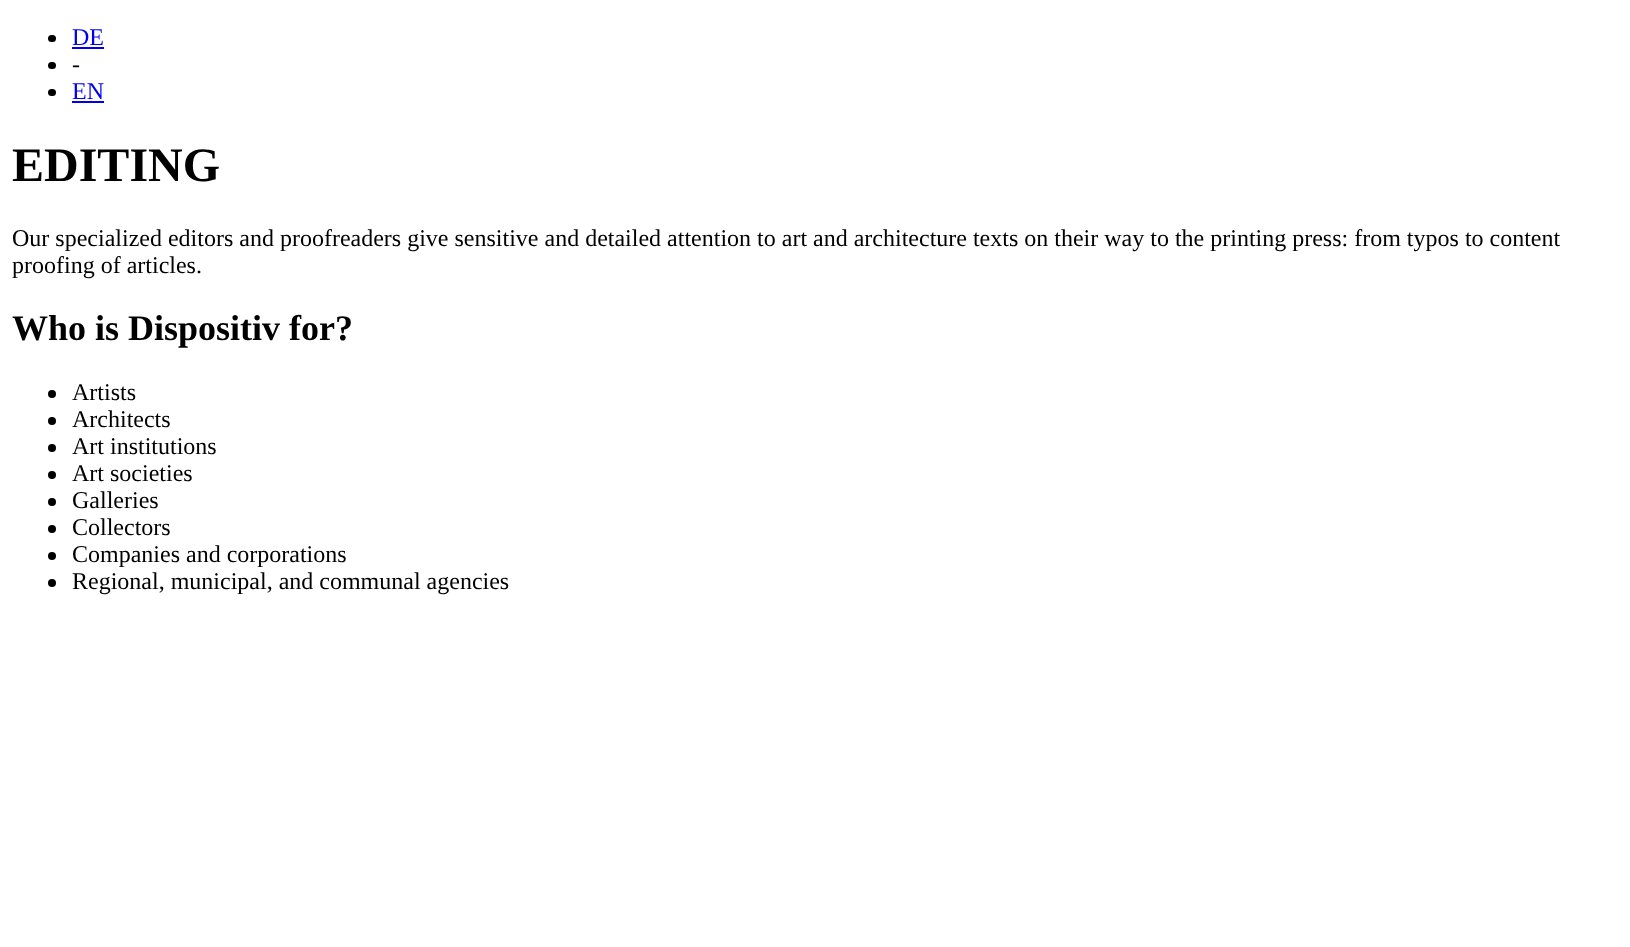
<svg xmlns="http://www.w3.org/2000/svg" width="1630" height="947">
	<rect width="100%" height="100%" fill="#FFFFFF" />
	<rect x="48" y="35" width="8" height="7" rx="3.5" fill="#000000" />
	<text x="72" y="45" font-family="Liberation Serif" font-size="24" fill="#0000EE">DE</text>
	<rect x="72" y="47" width="32" height="2" fill="#0000EE" />
	<rect x="48" y="62" width="8" height="7" rx="3.5" fill="#000000" />
	<text x="72" y="72" font-family="Liberation Serif" font-size="24" fill="#000000">-</text>
	<rect x="48" y="89" width="8" height="7" rx="3.5" fill="#000000" />
	<text x="72" y="99" font-family="Liberation Serif" font-size="24" fill="#0000EE">EN</text>
	<rect x="72" y="101" width="32" height="2" fill="#0000EE" />
	<text x="12" y="181" font-family="Liberation Serif" font-size="48" font-weight="700" fill="#000000">EDITING</text>
	<g font-family="Liberation Serif" font-size="24" fill="#000000">
		<text x="12" y="246">Our specialized editors and proofreaders give sensitive and detailed attention to art and architecture texts on their way to the printing press: from typos to content</text>
		<text x="12" y="273">proofing of articles.</text>
	</g>
	<text x="12" y="340" font-family="Liberation Serif" font-size="36" font-weight="700" fill="#000000">Who is Dispositiv for?</text>
	<circle cx="52" cy="394" r="4" fill="#000000" />
	<text x="72" y="400" font-family="Liberation Serif" font-size="24" fill="#000000">Artists</text>
	<circle cx="52" cy="421" r="4" fill="#000000" />
	<text x="72" y="427" font-family="Liberation Serif" font-size="24" fill="#000000">Architects</text>
	<circle cx="52" cy="448" r="4" fill="#000000" />
	<text x="72" y="454" font-family="Liberation Serif" font-size="24" fill="#000000">Art institutions</text>
	<circle cx="52" cy="475" r="4" fill="#000000" />
	<text x="72" y="481" font-family="Liberation Serif" font-size="24" fill="#000000">Art societies</text>
	<circle cx="52" cy="502" r="4" fill="#000000" />
	<text x="72" y="508" font-family="Liberation Serif" font-size="24" fill="#000000">Galleries</text>
	<circle cx="52" cy="529" r="4" fill="#000000" />
	<text x="72" y="535" font-family="Liberation Serif" font-size="24" fill="#000000">Collectors</text>
	<circle cx="52" cy="556" r="4" fill="#000000" />
	<text x="72" y="562" font-family="Liberation Serif" font-size="24" fill="#000000">Companies and corporations</text>
	<circle cx="52" cy="583" r="4" fill="#000000" />
	<text x="72" y="589" font-family="Liberation Serif" font-size="24" fill="#000000">Regional, municipal, and communal agencies</text>
</svg>
